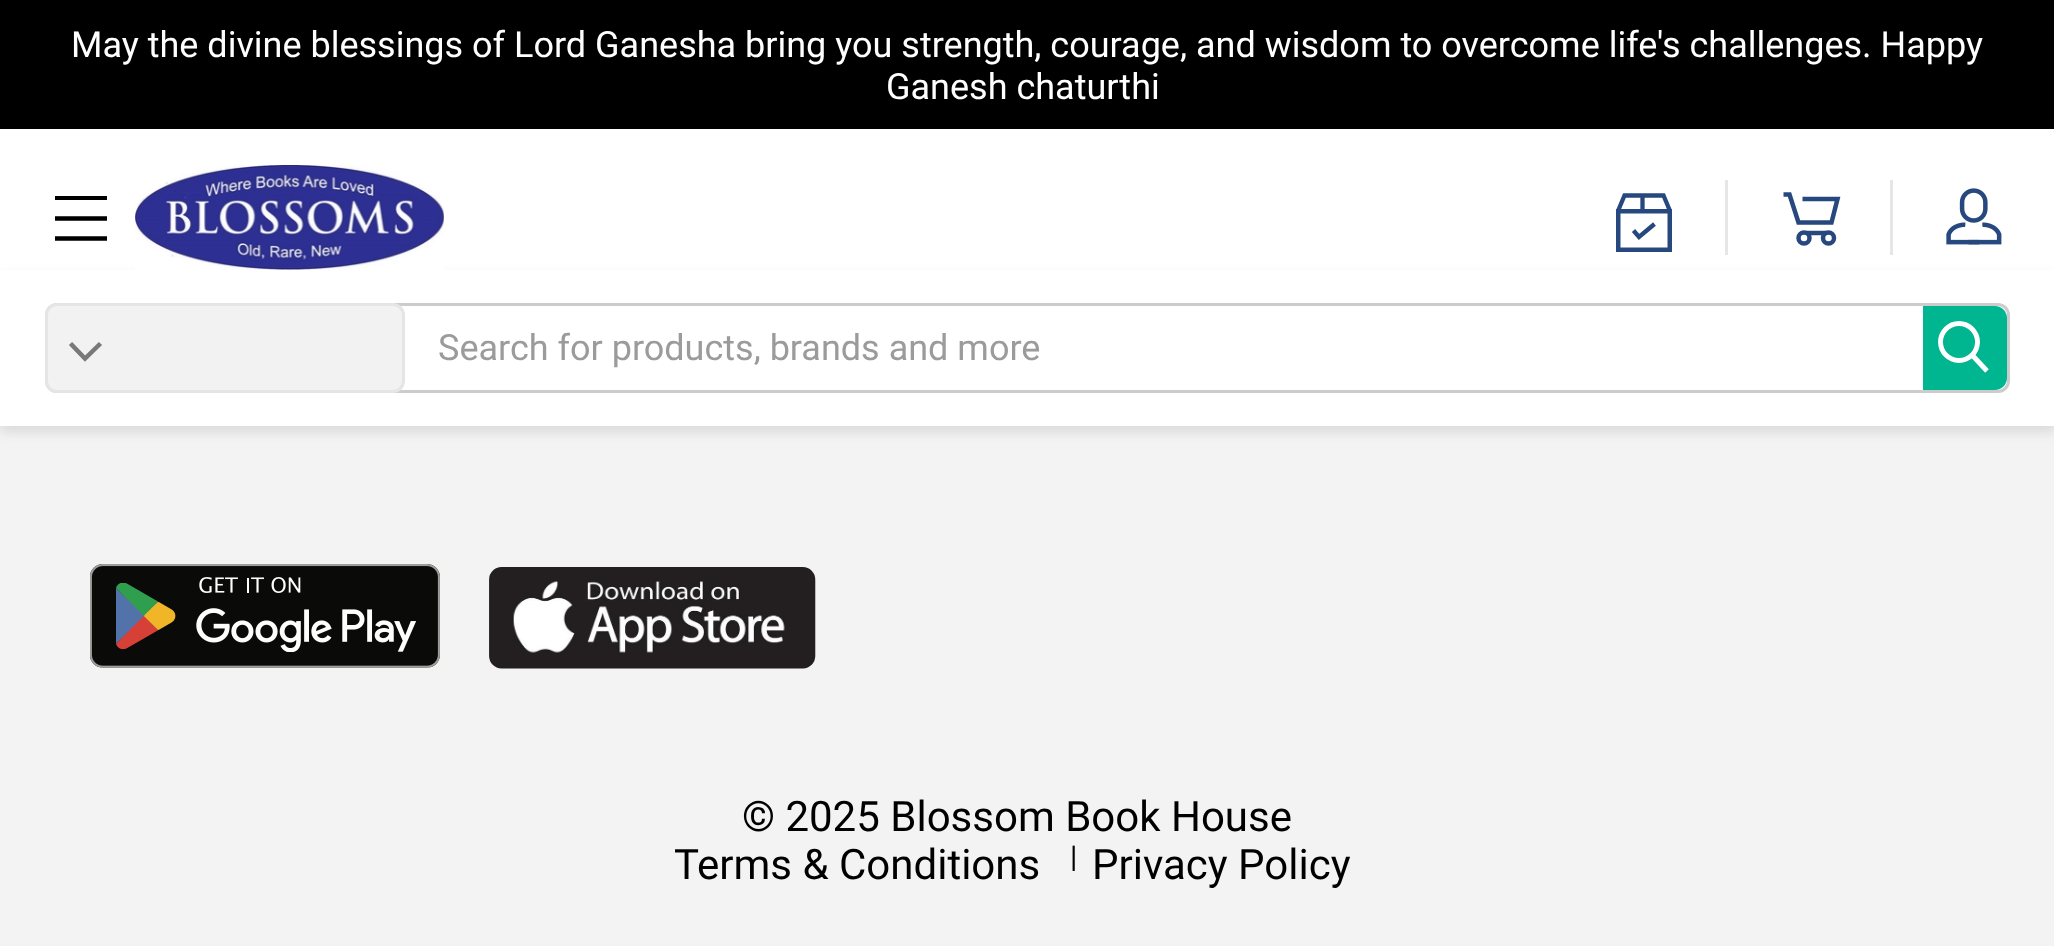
<svg xmlns="http://www.w3.org/2000/svg" width="2054" height="946">
	<rect width="100%" height="100%" fill="#F3F3F3" />
	<rect x="0" y="0" width="2054" height="129" fill="#000000" />
	<g font-family="Roboto" font-size="36" fill="#FFFFFF">
		<text x="71" y="57">May the divine blessings of Lord Ganesha bring you strength, courage, and wisdom to overcome life's challenges. Happy</text>
		<text x="886" y="99">Ganesh chaturthi</text>
	</g>
	<rect x="0" y="129" width="2054" height="141" fill="#FFFFFF" />
	<rect x="55" y="196" width="52" height="4" fill="#000000" />
	<path d="M55 218.5H107M55 238.5H107" fill="none" stroke="#000000" stroke-width="4.3" />
	<rect x="0" y="276" width="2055" height="156" fill="#000000" fill-opacity="0.1" filter="blur(6px)" />
	<image x="135" y="165" width="309" height="105" href="assets/img1.png" />
	<path d="M1618 211L1624.5 195.5H1663.5L1670 211" fill="none" stroke="#27487F" stroke-width="4.3" />
	<rect x="1618.25" y="211.25" width="51.5" height="38.5" fill="none" stroke="#27487F" stroke-width="4.5" />
	<path d="M1642.5 196.5V211M1633.5 230.5L1639 237L1654.5 224" fill="none" stroke="#27487F" stroke-width="4.3" />
	<rect x="1725" y="180" width="3" height="75" fill="#E6E6E6" />
	<path d="M1783.5 194.5H1789.5L1798.5 222.5H1831.5L1837.5 199H1802.5" fill="none" stroke="#27487F" stroke-width="4.5" />
	<circle cx="1804" cy="238" r="5.5" fill="none" stroke="#27487F" stroke-width="4.5" />
	<circle cx="1828.5" cy="238" r="5.5" fill="none" stroke="#27487F" stroke-width="4.5" />
	<path d="M1806.5 233H1826.5" fill="none" stroke="#27487F" stroke-width="4.5" />
	<rect x="1890" y="180" width="3" height="75" fill="#E6E6E6" />
	<image x="1946" y="188" width="56" height="57" href="assets/img2.png" />
	<rect x="0" y="270" width="2054" height="156" fill="#FFFFFF" />
	<rect x="46.5" y="304.5" width="1962" height="87" rx="10.5" fill="none" stroke="#CCCCCC" stroke-width="3" />
	<rect x="46.5" y="304.5" width="357" height="87" rx="10.5" fill="#F2F2F2" stroke="#E5E5E5" stroke-width="3" />
	<path d="M70.5 343.5L85 358.5L100.5 343.5" fill="none" stroke="#797979" stroke-width="4.5" />
	<text x="438" y="360" font-family="Roboto" font-size="36" fill="#9B9B9B">Search for products, brands and more</text>
	<path d="M1923 306H1995C2001.5 306 2007 311.5 2007 318V378C2007 384.5 2001.5 390 1995 390H1923Z" fill="#00B690" />
	<circle cx="1959" cy="342" r="18.5" fill="none" stroke="#FFFFFF" stroke-width="4.9" />
	<path d="M1973 356L1987 371" fill="none" stroke="#FFFFFF" stroke-width="4.9" />
	<image x="90" y="564" width="350" height="104" href="assets/img3.png" />
	<image x="489" y="567" width="327" height="102" href="assets/img4.png" />
	<g font-family="Roboto" font-size="42" fill="#000000">
		<text x="742" y="831">© 2025 Blossom Book House</text>
		<text x="674" y="879">Terms &amp; Conditions</text>
	</g>
	<text x="1070" y="867" font-family="Roboto" font-size="30" fill="#000000">|</text>
	<text x="1092" y="879" font-family="Roboto" font-size="42" fill="#000000">Privacy Policy</text>
</svg>
